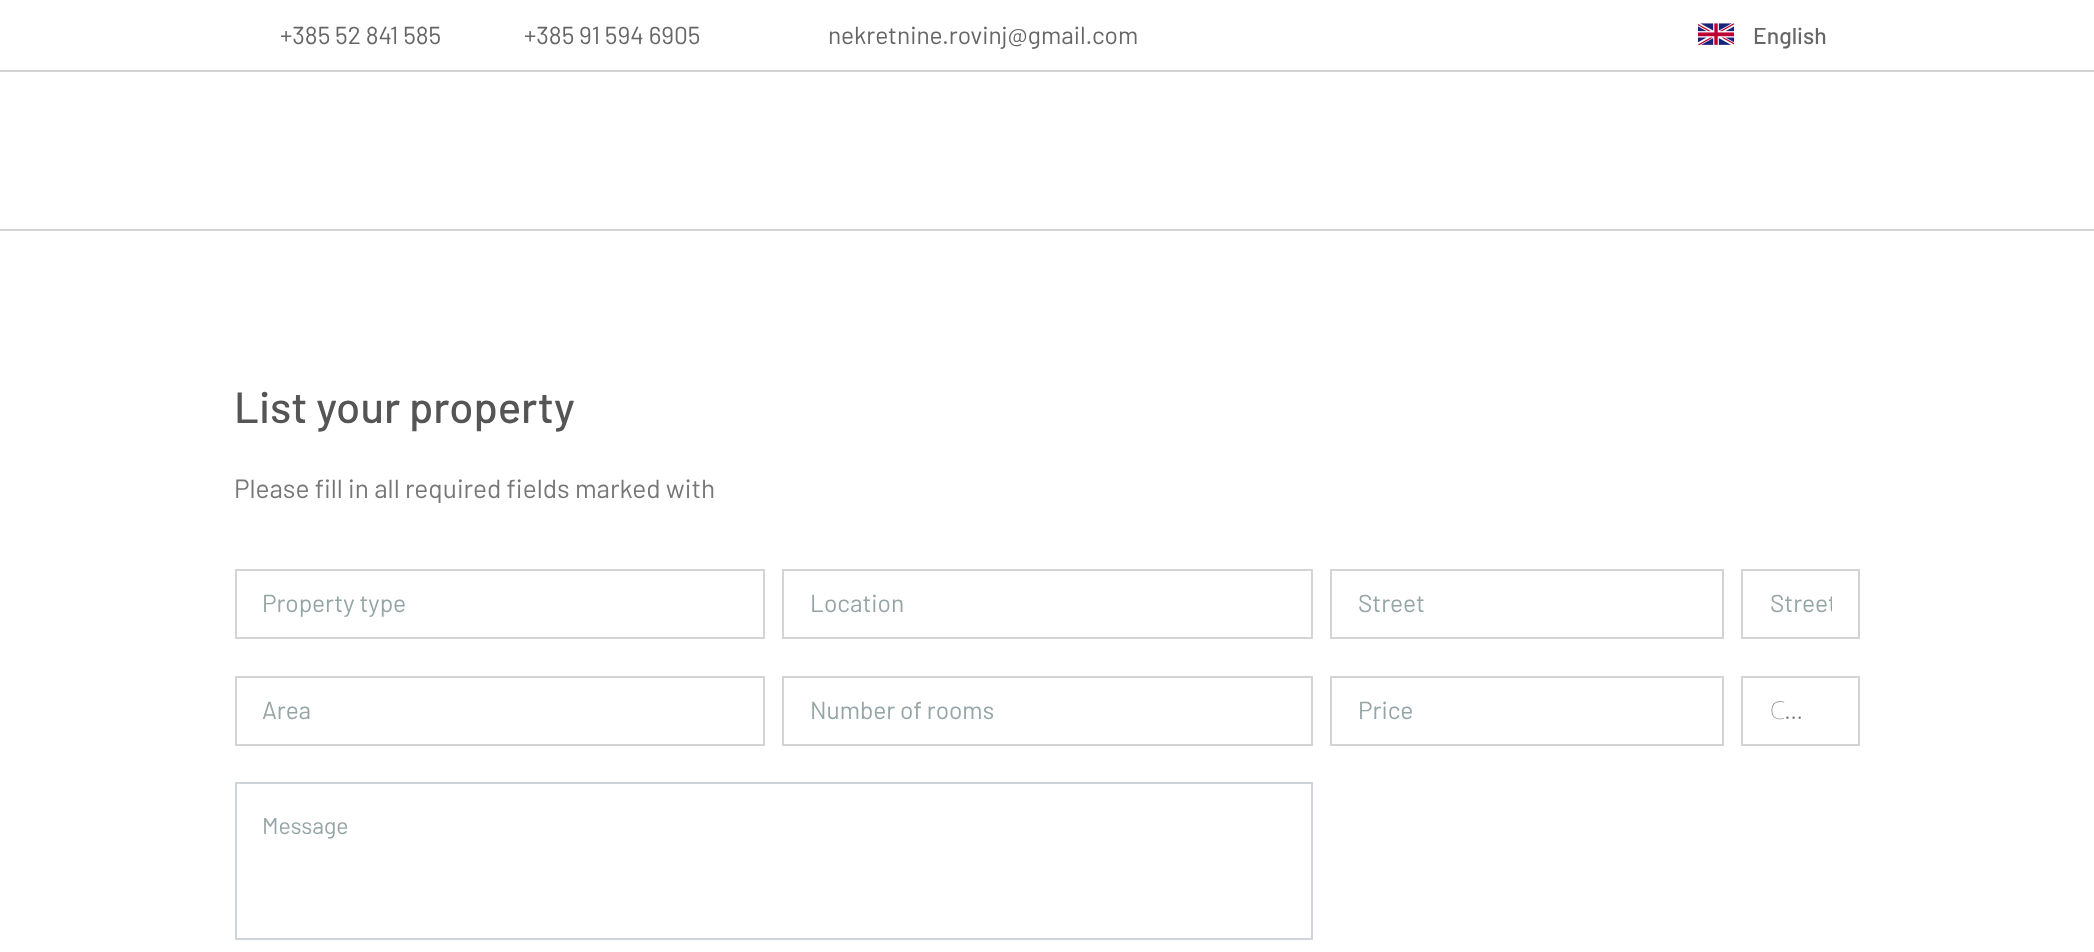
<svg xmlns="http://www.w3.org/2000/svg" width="2094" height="952">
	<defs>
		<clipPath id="clip1"><rect x="1769" y="588" width="63" height="30" /></clipPath>
	</defs>
	<rect width="100%" height="100%" fill="#FFFFFF" />
	<rect x="0" y="70" width="2094" height="2" fill="#D4D4D4" />
	<g font-family="Barlow" font-size="24.5" fill="#666666">
		<text x="280" y="44">+385 52 841 585</text>
		<text x="524" y="44">+385 91 594 6905</text>
		<text x="828" y="44">nekretnine.rovinj@gmail.com</text>
	</g>
	<image x="1698" y="23" width="36" height="22" href="assets/img1.png" />
	<text x="1753" y="44" font-family="Barlow" font-size="23" font-weight="500" fill="#666666">English</text>
	<rect x="0" y="229" width="2094" height="2" fill="#D4D4D4" />
	<text x="234" y="423" font-family="Barlow" font-size="43.75" font-weight="500" fill="#555555">List your property</text>
	<text x="234" y="498" font-family="Barlow" font-size="26.25" fill="#777777">Please fill in all required fields marked with</text>
	<rect x="236" y="570" width="528" height="68" fill="none" stroke="#D4D4D4" stroke-width="2" />
	<text x="262" y="612" font-family="Barlow" font-size="24.5" fill="#95A5A6">Property type</text>
	<rect x="783" y="570" width="529" height="68" fill="none" stroke="#D4D4D4" stroke-width="2" />
	<text x="810" y="612" font-family="Barlow" font-size="24.5" fill="#95A5A6">Location</text>
	<rect x="1331" y="570" width="392" height="68" fill="none" stroke="#D4D4D4" stroke-width="2" />
	<text x="1358" y="612" font-family="Barlow" font-size="24.5" fill="#95A5A6">Street</text>
	<rect x="1742" y="570" width="117" height="68" fill="none" stroke="#D4D4D4" stroke-width="2" />
	<g clip-path="url(#clip1)">
		<text x="1770" y="612" font-family="Barlow" font-size="24.5" fill="#95A5A6">Street</text>
	</g>
	<rect x="236" y="677" width="528" height="68" fill="none" stroke="#D4D4D4" stroke-width="2" />
	<text x="262" y="719" font-family="Barlow" font-size="24.5" fill="#95A5A6">Area</text>
	<rect x="783" y="677" width="529" height="68" fill="none" stroke="#D4D4D4" stroke-width="2" />
	<text x="810" y="719" font-family="Barlow" font-size="24.5" fill="#95A5A6">Number of rooms</text>
	<rect x="1331" y="677" width="392" height="68" fill="none" stroke="#D4D4D4" stroke-width="2" />
	<text x="1358" y="719" font-family="Barlow" font-size="24.5" fill="#95A5A6">Price</text>
	<rect x="1742" y="677" width="117" height="68" fill="none" stroke="#D4D4D4" stroke-width="2" />
	<text x="1770" y="719" font-family="Noto Sans" font-size="24.5" font-weight="100" fill="#777777">C</text>
	<text x="1784" y="719" font-family="Barlow" font-size="24.5" font-weight="300" fill="#777777">…</text>
	<rect x="236" y="783" width="1076" height="156" fill="none" stroke="#CED4DA" stroke-width="2" />
	<text x="262" y="834" font-family="Barlow" font-size="23" fill="#95A5A6">Message</text>
</svg>
